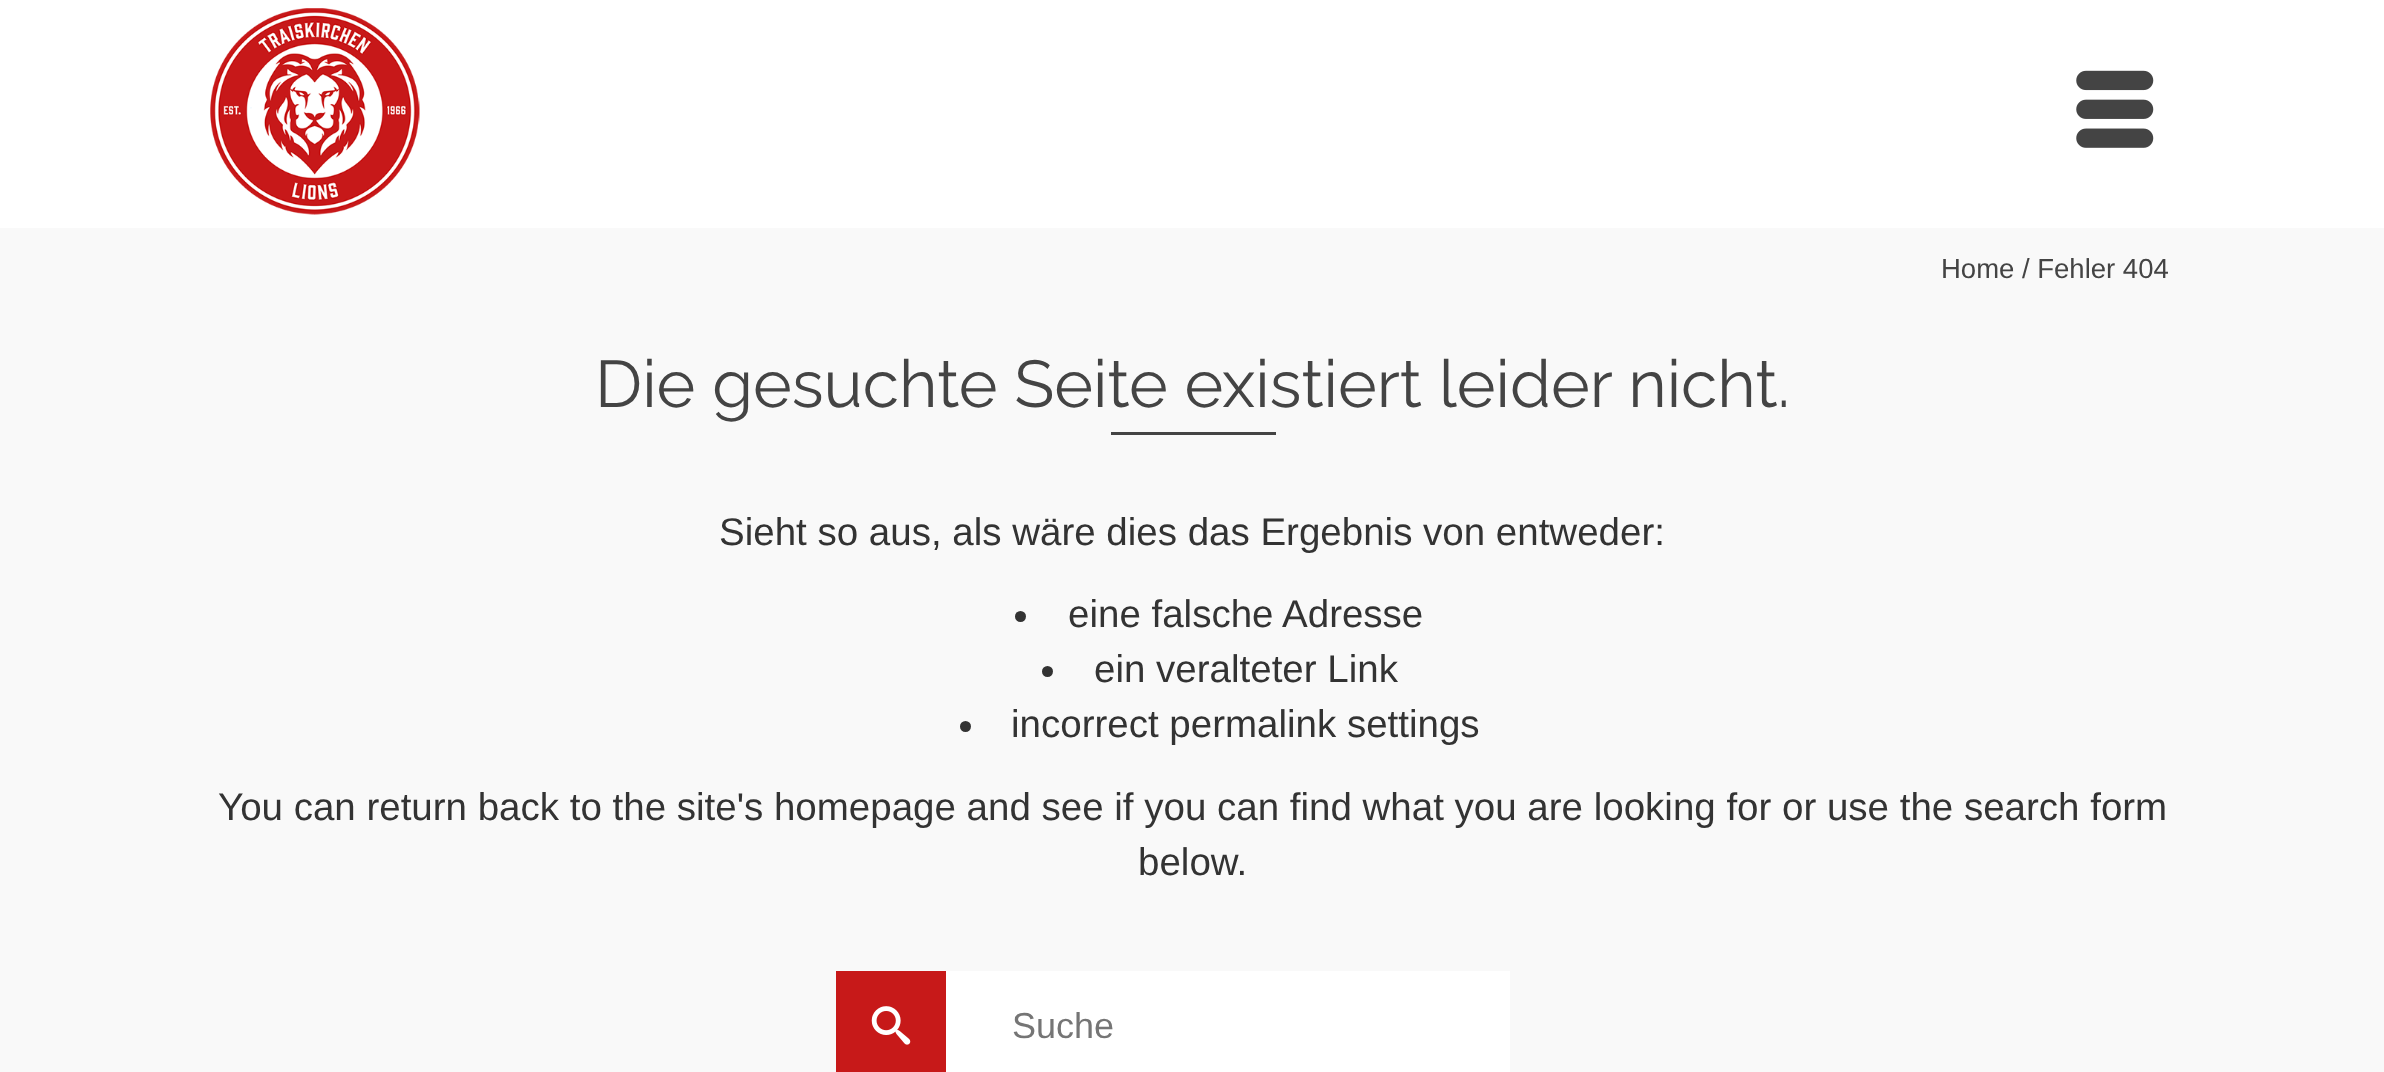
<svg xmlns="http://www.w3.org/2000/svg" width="2384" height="1072">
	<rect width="100%" height="100%" fill="#FFFFFF" />
	<image x="210" y="8" width="210" height="207" href="assets/img1.png" />
	<image x="2076" y="70" width="78" height="78" href="assets/img2.png" />
	<rect x="0" y="228" width="2384" height="844" fill="#F9F9F9" />
	<text x="1941" y="278" font-family="Liberation Sans" font-size="27.5" fill="#444444">Home / Fehler 404</text>
	<text x="595" y="407" font-family="Raleway" font-size="66" fill="#444444">Die gesuchte Seite existiert leider nicht.</text>
	<rect x="1111" y="432" width="165" height="3" fill="#444444" />
	<text x="719" y="545" font-family="Liberation Sans" font-size="38.5" fill="#333333">Sieht so aus, als wäre dies das Ergebnis von entweder:</text>
	<circle cx="1020.5" cy="616.5" r="5.5" fill="#333333" />
	<text x="1068" y="627" font-family="Liberation Sans" font-size="38.5" fill="#333333">eine falsche Adresse</text>
	<circle cx="1047.5" cy="671.5" r="5.5" fill="#333333" />
	<text x="1094" y="682" font-family="Liberation Sans" font-size="38.5" fill="#333333">ein veralteter Link</text>
	<circle cx="965.5" cy="726.5" r="5.5" fill="#333333" />
	<g font-family="Liberation Sans" font-size="38.5" fill="#333333">
		<text x="1011" y="737">incorrect permalink settings</text>
		<text x="218" y="820">You can return back to the site's homepage and see if you can find what you are looking for or use the search form</text>
		<text x="1138" y="875">below.</text>
	</g>
	<rect x="836" y="971" width="110" height="101" fill="#C71919" />
	<image x="871" y="1006" width="40" height="39" href="assets/img3.png" />
	<rect x="946" y="971" width="564" height="101" fill="#FFFFFF" />
	<text x="1012" y="1038" font-family="Liberation Sans" font-size="36" fill="#757575">Suche</text>
</svg>
